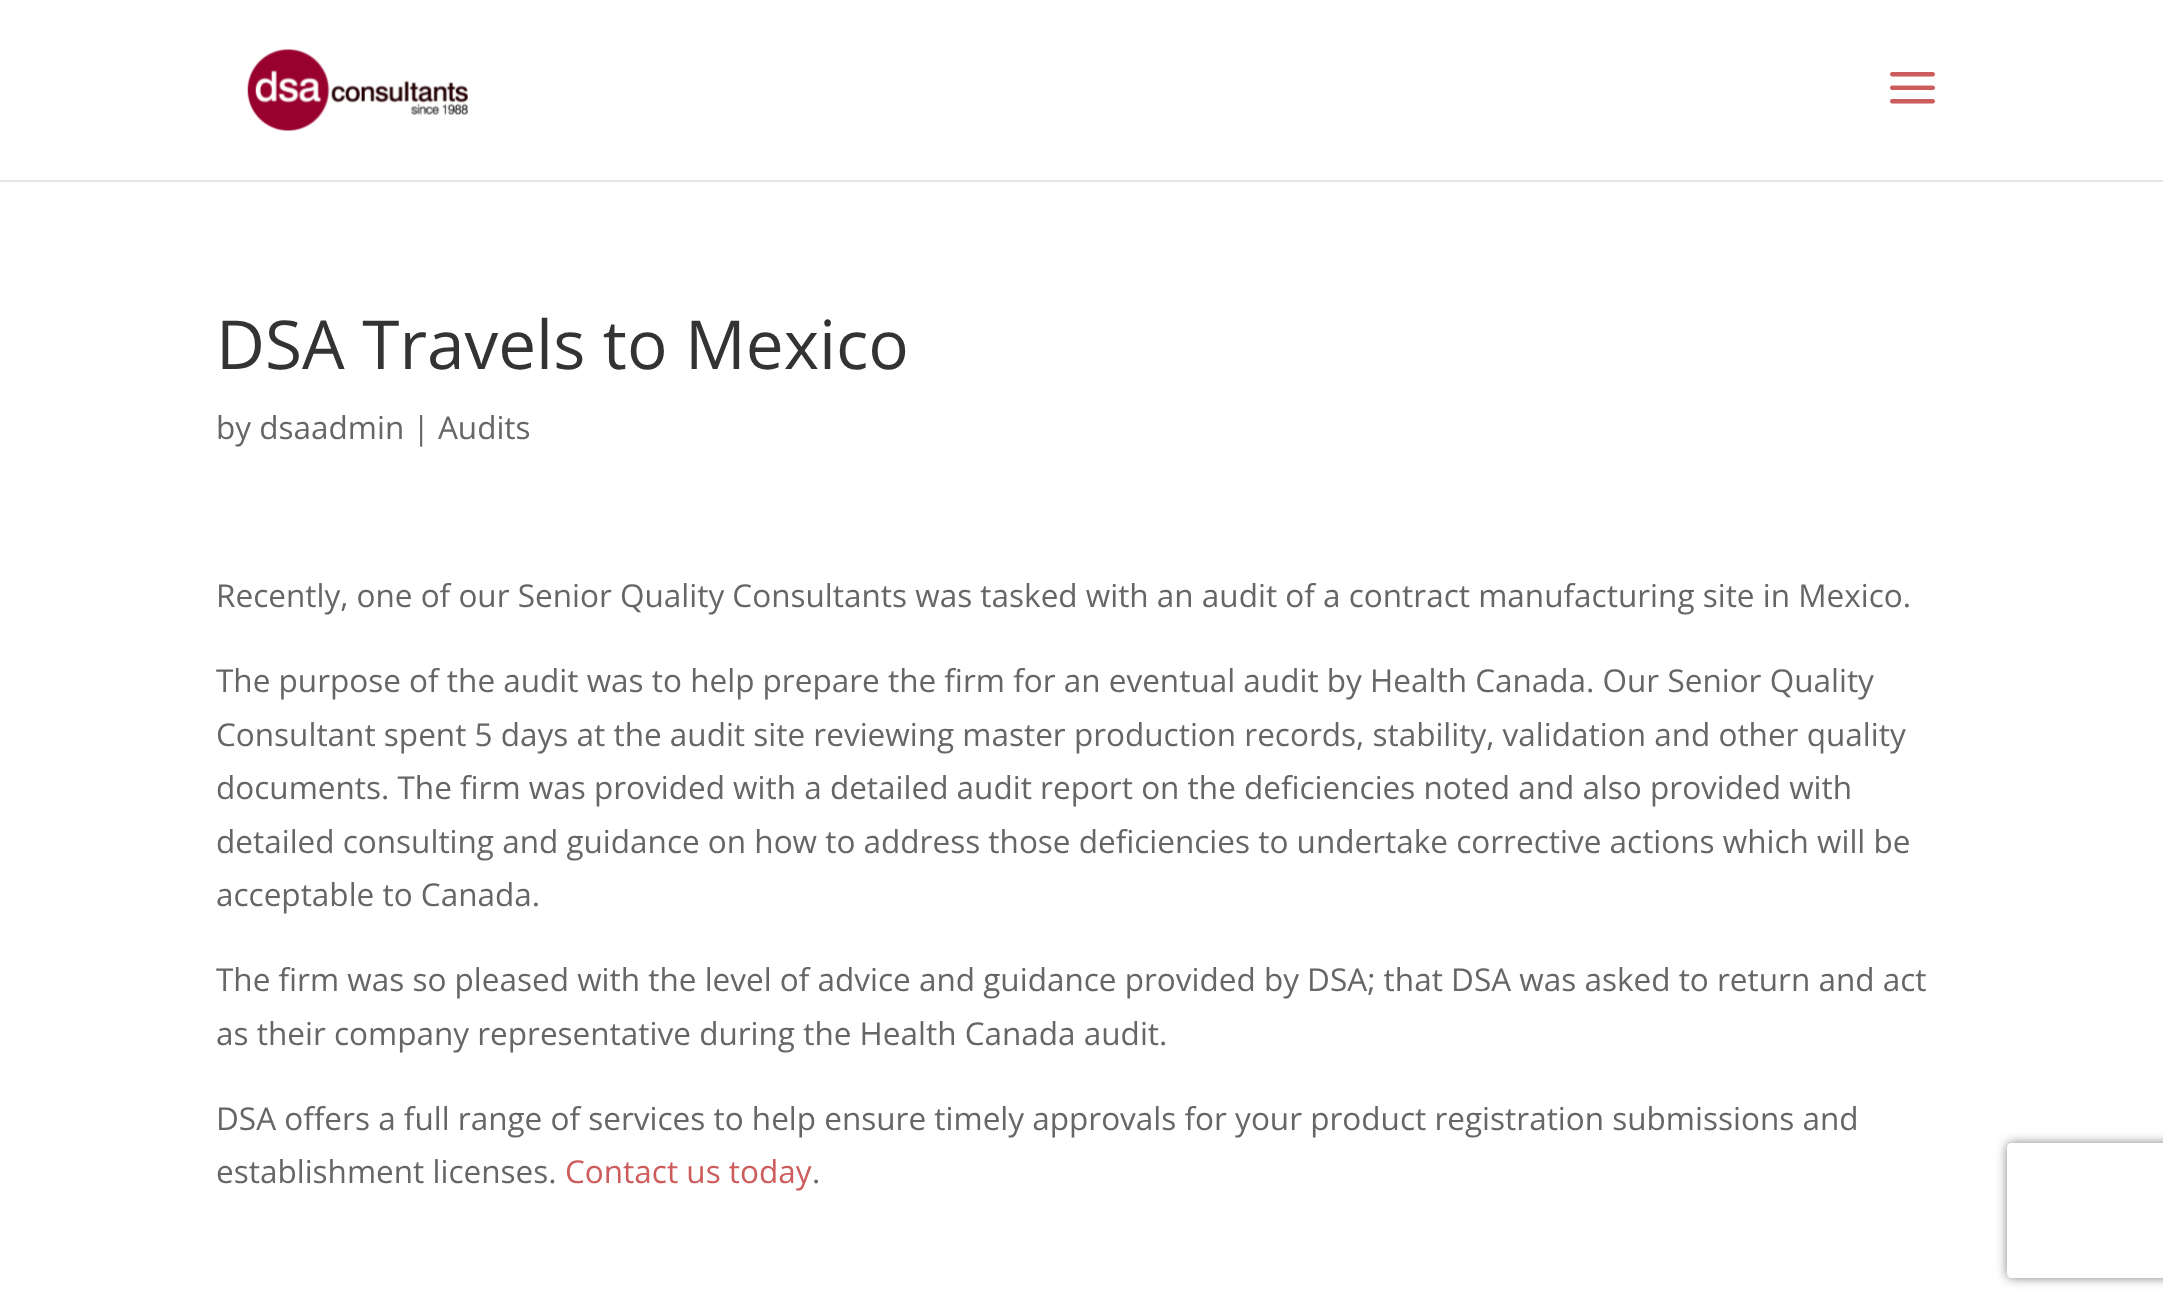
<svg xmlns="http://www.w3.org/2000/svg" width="2163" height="1308">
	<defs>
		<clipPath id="clip1"><path d="M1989 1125H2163V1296H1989ZM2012 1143H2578C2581 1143 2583 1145 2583 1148V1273C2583 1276 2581 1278 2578 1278H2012C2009 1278 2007 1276 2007 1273V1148C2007 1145 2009 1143 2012 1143Z" clip-rule="evenodd" /></clipPath>
	</defs>
	<rect width="100%" height="100%" fill="#FFFFFF" />
	<path d="M0 180V182H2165V2H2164V180Z" fill="#E6E6E6" />
	<image x="247" y="49" width="221" height="82" href="assets/img1.png" />
	<image x="1890" y="72" width="45" height="32" href="assets/img2.png" />
	<text x="216" y="369" font-family="Open Sans" font-size="67.5" fill="#333333">DSA Travels to Mexico</text>
	<g font-family="Open Sans" font-size="31.5" fill="#666666">
		<text x="216" y="439">by dsaadmin | Audits</text>
		<text x="216" y="607">Recently, one of our Senior Quality Consultants was tasked with an audit of a contract manufacturing site in Mexico.</text>
		<text x="216" y="692">The purpose of the audit was to help prepare the firm for an eventual audit by Health Canada. Our Senior Quality</text>
		<text x="216" y="746">Consultant spent 5 days at the audit site reviewing master production records, stability, validation and other quality</text>
		<text x="216" y="799">documents. The firm was provided with a detailed audit report on the deficiencies noted and also provided with</text>
		<text x="216" y="853">detailed consulting and guidance on how to address those deficiencies to undertake corrective actions which will be</text>
		<text x="216" y="906">acceptable to Canada.</text>
		<text x="216" y="991">The firm was so pleased with the level of advice and guidance provided by DSA; that DSA was asked to return and act</text>
		<text x="216" y="1045">as their company representative during the Health Canada audit.</text>
		<text x="216" y="1130">DSA offers a full range of services to help ensure timely approvals for your product registration submissions and</text>
		<text x="216" y="1183">establishment licenses.</text>
	</g>
	<text x="565" y="1183" font-family="Open Sans" font-size="31.5" fill="#CD5C5C">Contact us today</text>
	<text x="812" y="1183" font-family="Open Sans" font-size="31.5" fill="#666666">.</text>
	<g clip-path="url(#clip1)">
		<rect x="2007" y="1143" width="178" height="135" rx="5" fill="#808080" filter="blur(5.5px)" />
	</g>
</svg>
